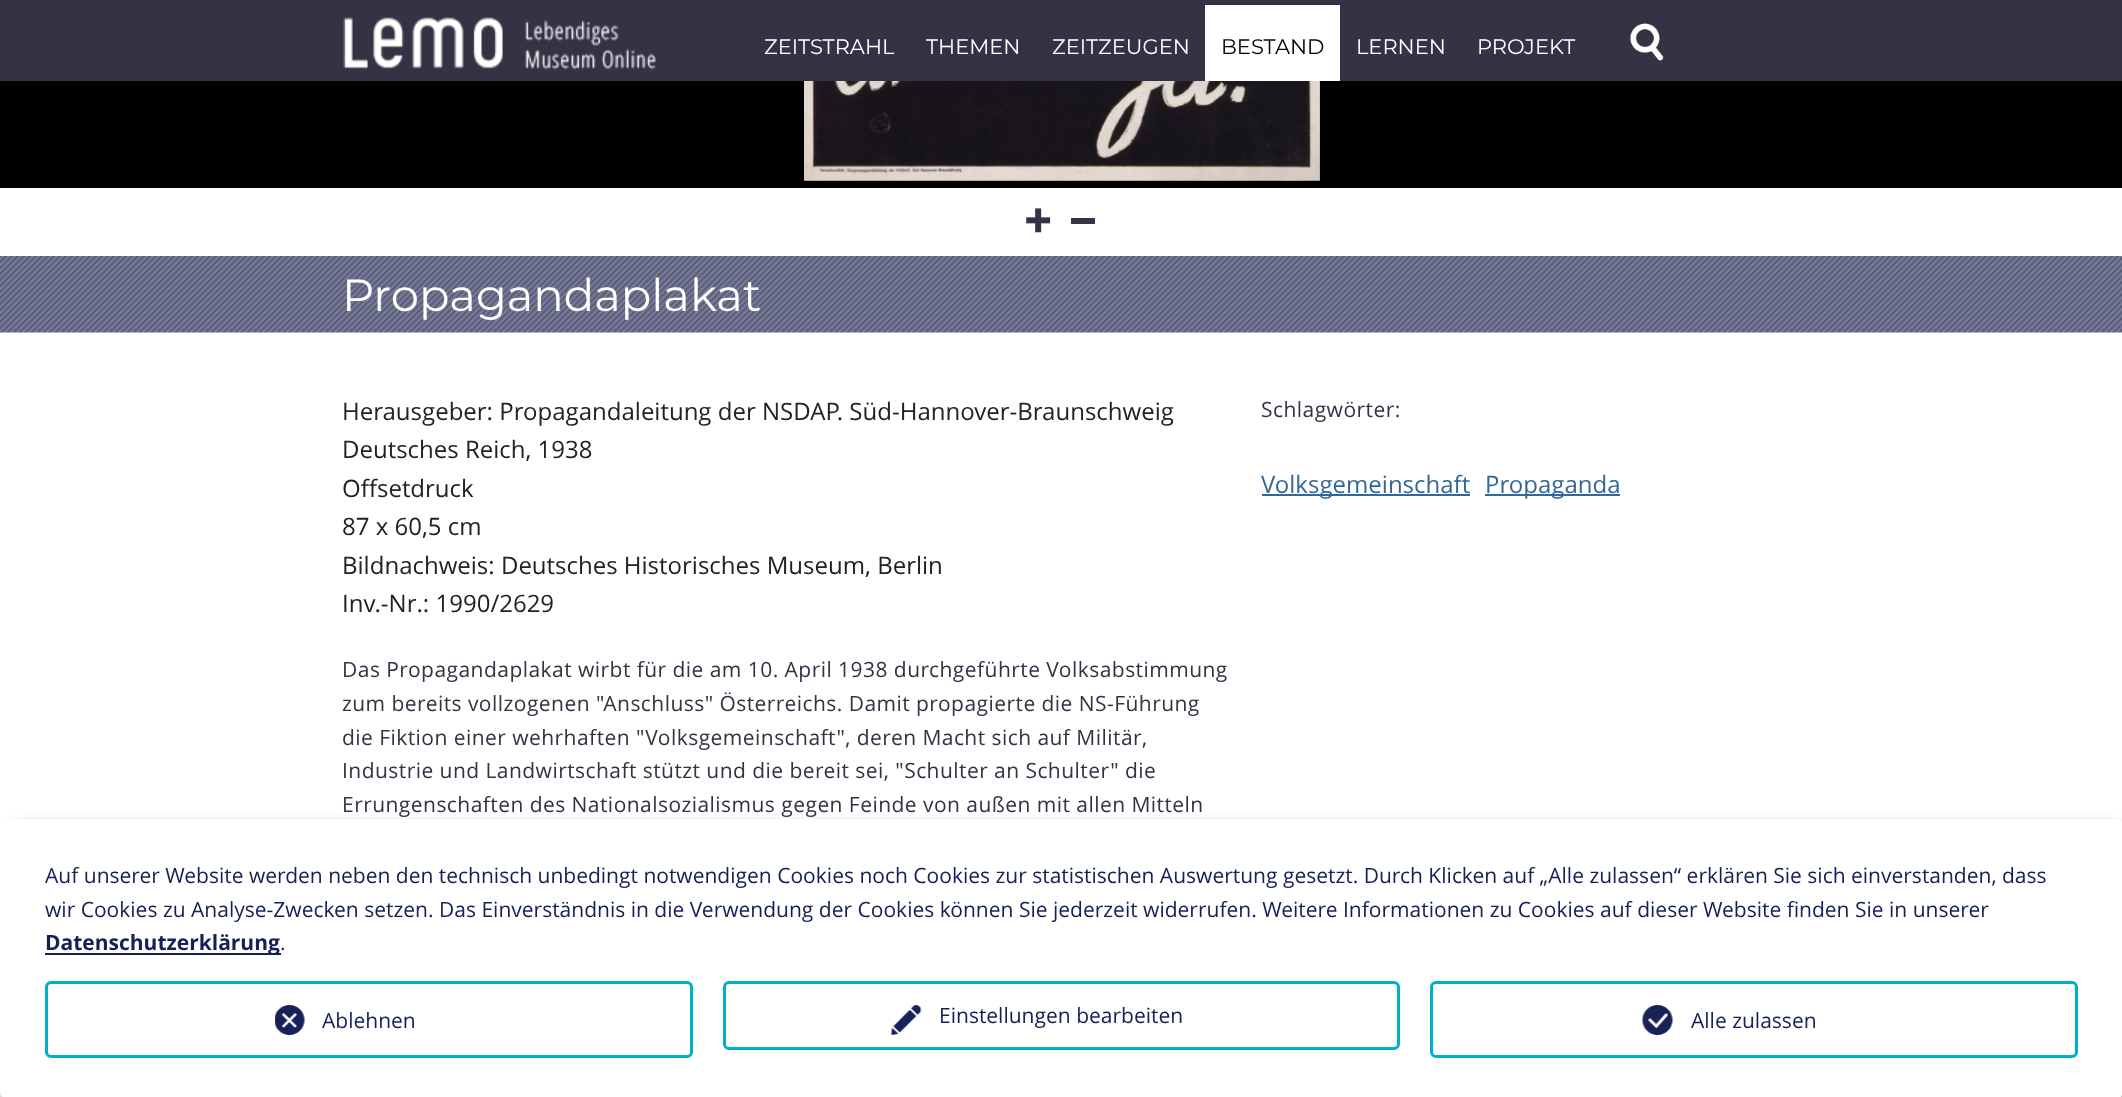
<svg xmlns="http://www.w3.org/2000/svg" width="2122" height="1097">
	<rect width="100%" height="100%" fill="#FFFFFF" />
	<rect x="0" y="0" width="2122" height="81" fill="#353244" />
	<image x="343" y="17" width="313" height="53" href="assets/img1.png" />
	<g font-family="Montserrat" font-size="21" fill="#FFFFFF">
		<text x="764" y="54">ZEITSTRAHL</text>
		<text x="926" y="54">THEMEN</text>
		<text x="1052" y="54">ZEITZEUGEN</text>
	</g>
	<rect x="1205" y="5" width="135" height="76" fill="#FFFFFF" />
	<text x="1221" y="54" font-family="Montserrat" font-size="21" fill="#000000">BESTAND</text>
	<g font-family="Montserrat" font-size="21" fill="#FFFFFF">
		<text x="1356" y="54">LERNEN</text>
		<text x="1477" y="54">PROJEKT</text>
	</g>
	<image x="1630" y="23" width="34" height="38" href="assets/img2.png" />
	<rect x="0" y="81" width="2122" height="107" fill="#000000" />
	<image x="804" y="81" width="516" height="100" href="assets/img3.png" />
	<image x="1026" y="208" width="25" height="25" href="assets/img4.png" />
	<rect x="1071" y="218" width="24" height="6" fill="#353244" />
	<image x="0" y="256" width="2122" height="77" href="assets/img5.png" />
	<text x="342" y="311" font-family="Montserrat" font-size="45" fill="#FFFFFF">Propagandaplakat</text>
	<g font-family="Open Sans" font-size="24" fill="#222222">
		<text x="342" y="420">Herausgeber: Propagandaleitung der NSDAP. Süd-Hannover-Braunschweig</text>
		<text x="342" y="458">Deutsches Reich, 1938</text>
		<text x="342" y="497">Offsetdruck</text>
		<text x="342" y="535">87 x 60,5 cm</text>
		<text x="342" y="574">Bildnachweis: Deutsches Historisches Museum, Berlin</text>
		<text x="342" y="612">Inv.-Nr.: 1990/2629</text>
	</g>
	<g font-family="Open Sans" font-size="21" letter-spacing="0.45" fill="#353244">
		<text x="342" y="677">Das Propagandaplakat wirbt für die am 10. April 1938 durchgeführte Volksabstimmung</text>
		<text x="342" y="711">zum bereits vollzogenen "Anschluss" Österreichs. Damit propagierte die NS-Führung</text>
		<text x="342" y="745">die Fiktion einer wehrhaften "Volksgemeinschaft", deren Macht sich auf Militär,</text>
		<text x="342" y="778">Industrie und Landwirtschaft stützt und die bereit sei, "Schulter an Schulter" die</text>
		<text x="342" y="812">Errungenschaften des Nationalsozialismus gegen Feinde von außen mit allen Mitteln</text>
		<text x="1261" y="417">Schlagwörter:</text>
	</g>
	<rect x="1262" y="494" width="208" height="2" fill="#336699" />
	<text x="1261" y="493" font-family="Open Sans" font-size="24" fill="#336699">Volksgemeinschaft</text>
	<rect x="1485" y="494" width="135" height="2" fill="#336699" />
	<text x="1485" y="493" font-family="Open Sans" font-size="24" fill="#336699">Propaganda</text>
	<rect x="8" y="827" width="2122" height="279" rx="6" fill="#000000" fill-opacity="0.19" filter="blur(7.5px)" />
	<rect x="0" y="825" width="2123" height="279" rx="6" fill="#000000" fill-opacity="0.2" filter="blur(4.5px)" />
	<rect x="0" y="819" width="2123" height="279" rx="6" fill="#FFFFFF" />
	<g font-family="Open Sans" font-size="21" fill="#161F57">
		<text x="45" y="883">Auf unserer Website werden neben den technisch unbedingt notwendigen Cookies noch Cookies zur statistischen Auswertung gesetzt. Durch Klicken auf „Alle zulassen“ erklären Sie sich einverstanden, dass</text>
		<text x="45" y="917">wir Cookies zu Analyse-Zwecken setzen. Das Einverständnis in die Verwendung der Cookies können Sie jederzeit widerrufen. Weitere Informationen zu Cookies auf dieser Website finden Sie in unserer</text>
	</g>
	<rect x="45" y="953" width="236" height="2" fill="#161F57" />
	<text x="45" y="950" font-family="Open Sans" font-size="21" font-weight="700" fill="#161F57">Datenschutzerklärung</text>
	<text x="280" y="950" font-family="Open Sans" font-size="21" fill="#161F57">.</text>
	<rect x="724.5" y="982.5" width="674" height="66" rx="4.5" fill="none" stroke="#00AFCB" stroke-width="3" />
	<image x="891" y="1005" width="31" height="30" href="assets/img6.png" />
	<text x="939" y="1023" font-family="Open Sans" font-size="21" fill="#161F57">Einstellungen bearbeiten</text>
	<rect x="46.5" y="982.5" width="645" height="74" rx="4.5" fill="none" stroke="#00AFCB" stroke-width="3" />
	<image x="275" y="1005" width="30" height="30" href="assets/img7.png" />
	<text x="322" y="1028" font-family="Open Sans" font-size="21" fill="#161F57">Ablehnen</text>
	<rect x="1431.5" y="982.5" width="645" height="74" rx="4.5" fill="none" stroke="#00AFCB" stroke-width="3" />
	<image x="1642" y="1005" width="31" height="30" href="assets/img8.png" />
	<text x="1691" y="1028" font-family="Open Sans" font-size="21" fill="#161F57">Alle zulassen</text>
</svg>
